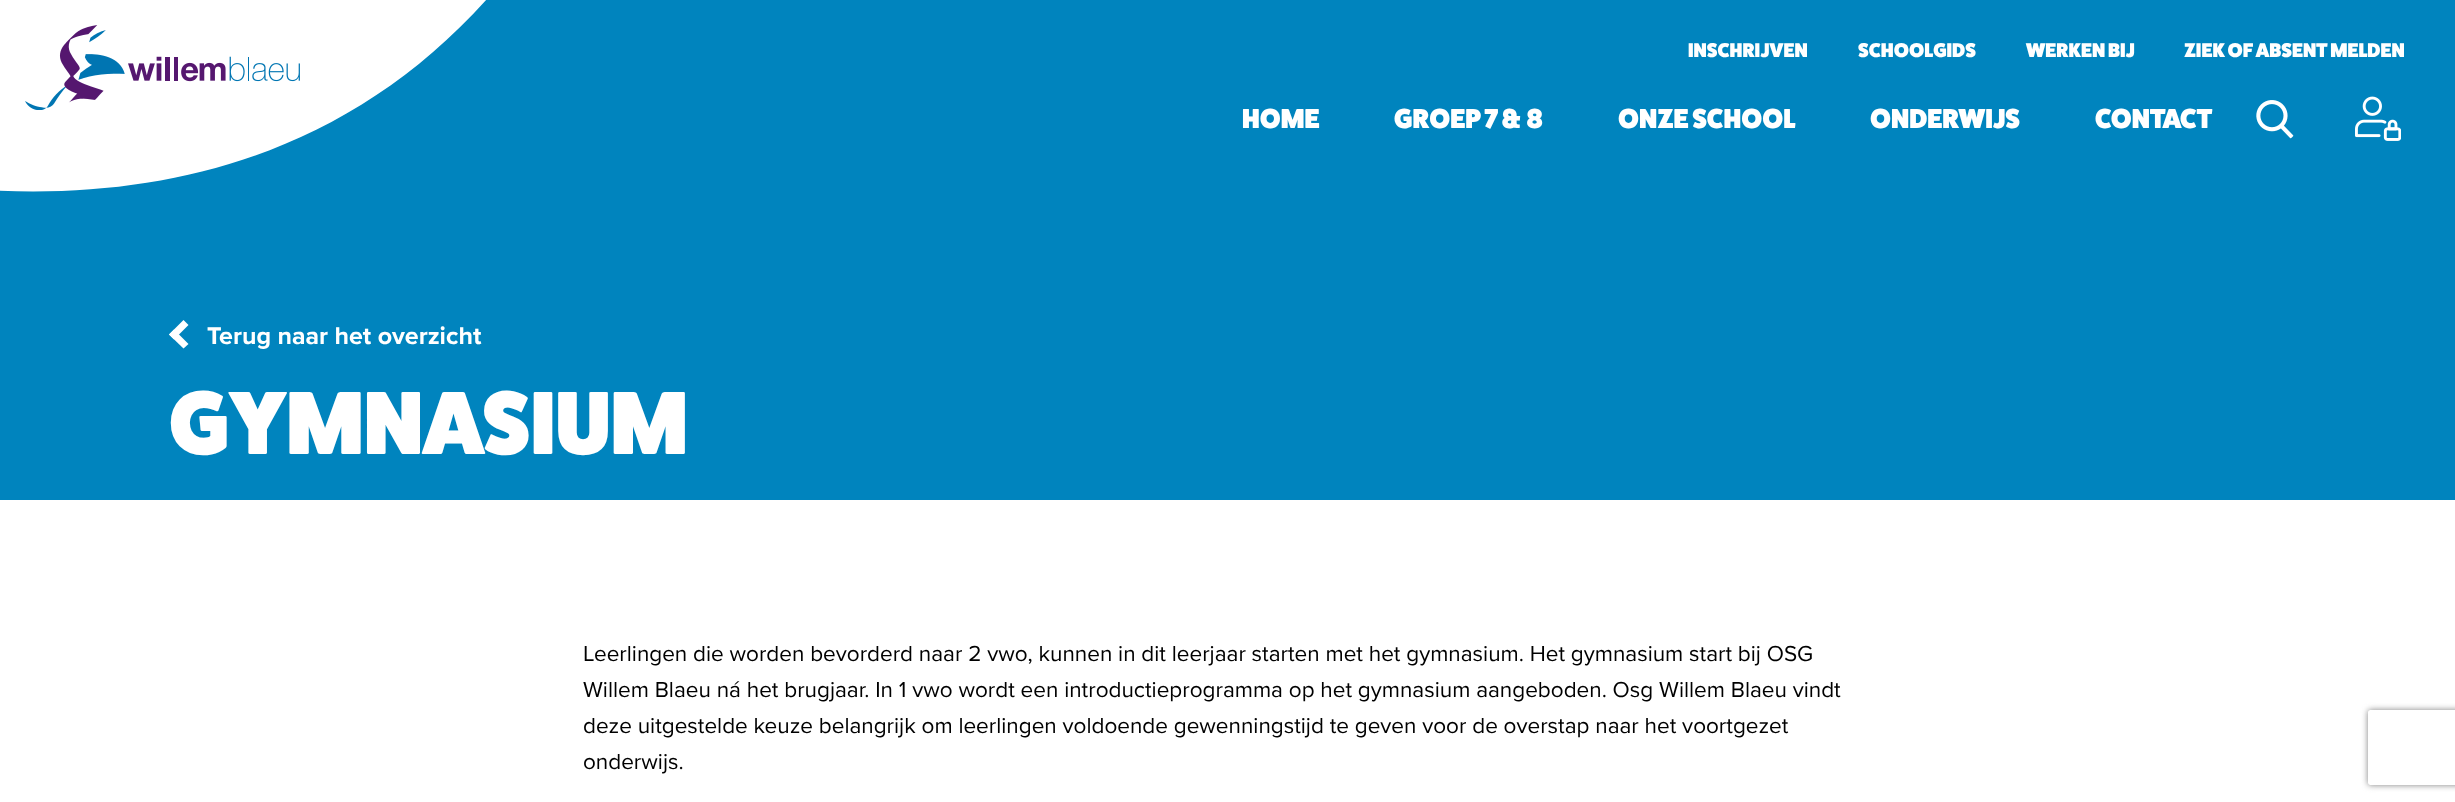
<svg xmlns="http://www.w3.org/2000/svg" width="2455" height="802">
	<defs>
		<clipPath id="clip1"><path d="M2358 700H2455V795H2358ZM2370.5 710H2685.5C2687 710 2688 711 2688 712.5V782.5C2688 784 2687 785 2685.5 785H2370.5C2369 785 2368 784 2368 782.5V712.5C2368 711 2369 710 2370.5 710Z" clip-rule="evenodd" /></clipPath>
	</defs>
	<rect width="100%" height="100%" fill="#FFFFFF" />
	<rect x="0" y="0" width="2455" height="500" fill="#0084BE" />
	<path d="M-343-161C-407-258-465-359-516-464L-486-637C-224-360 134-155 487-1C199 320-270 180-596 7L-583-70C-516-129-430-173-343-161" fill="#FFFFFF" />
	<image x="25" y="25" width="275" height="85" href="assets/img1.png" />
	<g font-family="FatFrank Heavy" font-size="20" font-weight="900" fill="#FFFFFF">
		<text x="1688" y="57">INSCHRIJVEN</text>
		<text x="1858" y="57">SCHOOLGIDS</text>
		<text x="2026" y="57">WERKEN BIJ</text>
		<text x="2184" y="57">ZIEK OF ABSENT MELDEN</text>
	</g>
	<g font-family="FatFrank Heavy" font-size="27.5" font-weight="900" fill="#FFFFFF">
		<text x="1242" y="128">HOME</text>
		<text x="1394" y="128">GROEP 7 &amp; 8</text>
		<text x="1618" y="128">ONZE SCHOOL</text>
		<text x="1870" y="128">ONDERWIJS</text>
		<text x="2095" y="128">CONTACT</text>
	</g>
	<image x="2256" y="100" width="38" height="39" href="assets/img2.png" />
	<image x="2355" y="96" width="46" height="45" href="assets/img3.png" />
	<path d="M183.5 348.5L169 334.5L174 329.5L188.5 344Z" fill="#FFFFFF" />
	<path d="M188.5 325L174 339.5L169 334.5L183.5 320Z" fill="#FFFFFF" />
	<text x="207" y="344" font-family="Proxima Nova" font-size="25" font-weight="700" fill="#FFFFFF">Terug naar het overzicht</text>
	<text x="169" y="454" font-family="FatFrank Heavy" font-size="90" font-weight="900" fill="#FFFFFF">GYMNASIUM</text>
	<g font-family="Proxima Nova" font-size="22.5" fill="#000000">
		<text x="583" y="661">Leerlingen die worden bevorderd naar 2 vwo, kunnen in dit leerjaar starten met het gymnasium. Het gymnasium start bij OSG</text>
		<text x="583" y="697">Willem Blaeu ná het brugjaar. In 1 vwo wordt een introductieprogramma op het gymnasium aangeboden. Osg Willem Blaeu vindt</text>
		<text x="583" y="733">deze uitgestelde keuze belangrijk om leerlingen voldoende gewenningstijd te geven voor de overstap naar het voortgezet</text>
		<text x="583" y="769">onderwijs.</text>
	</g>
	<g clip-path="url(#clip1)">
		<rect x="2368" y="710" width="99" height="75" rx="2.5" fill="#808080" filter="blur(3px)" />
	</g>
</svg>
